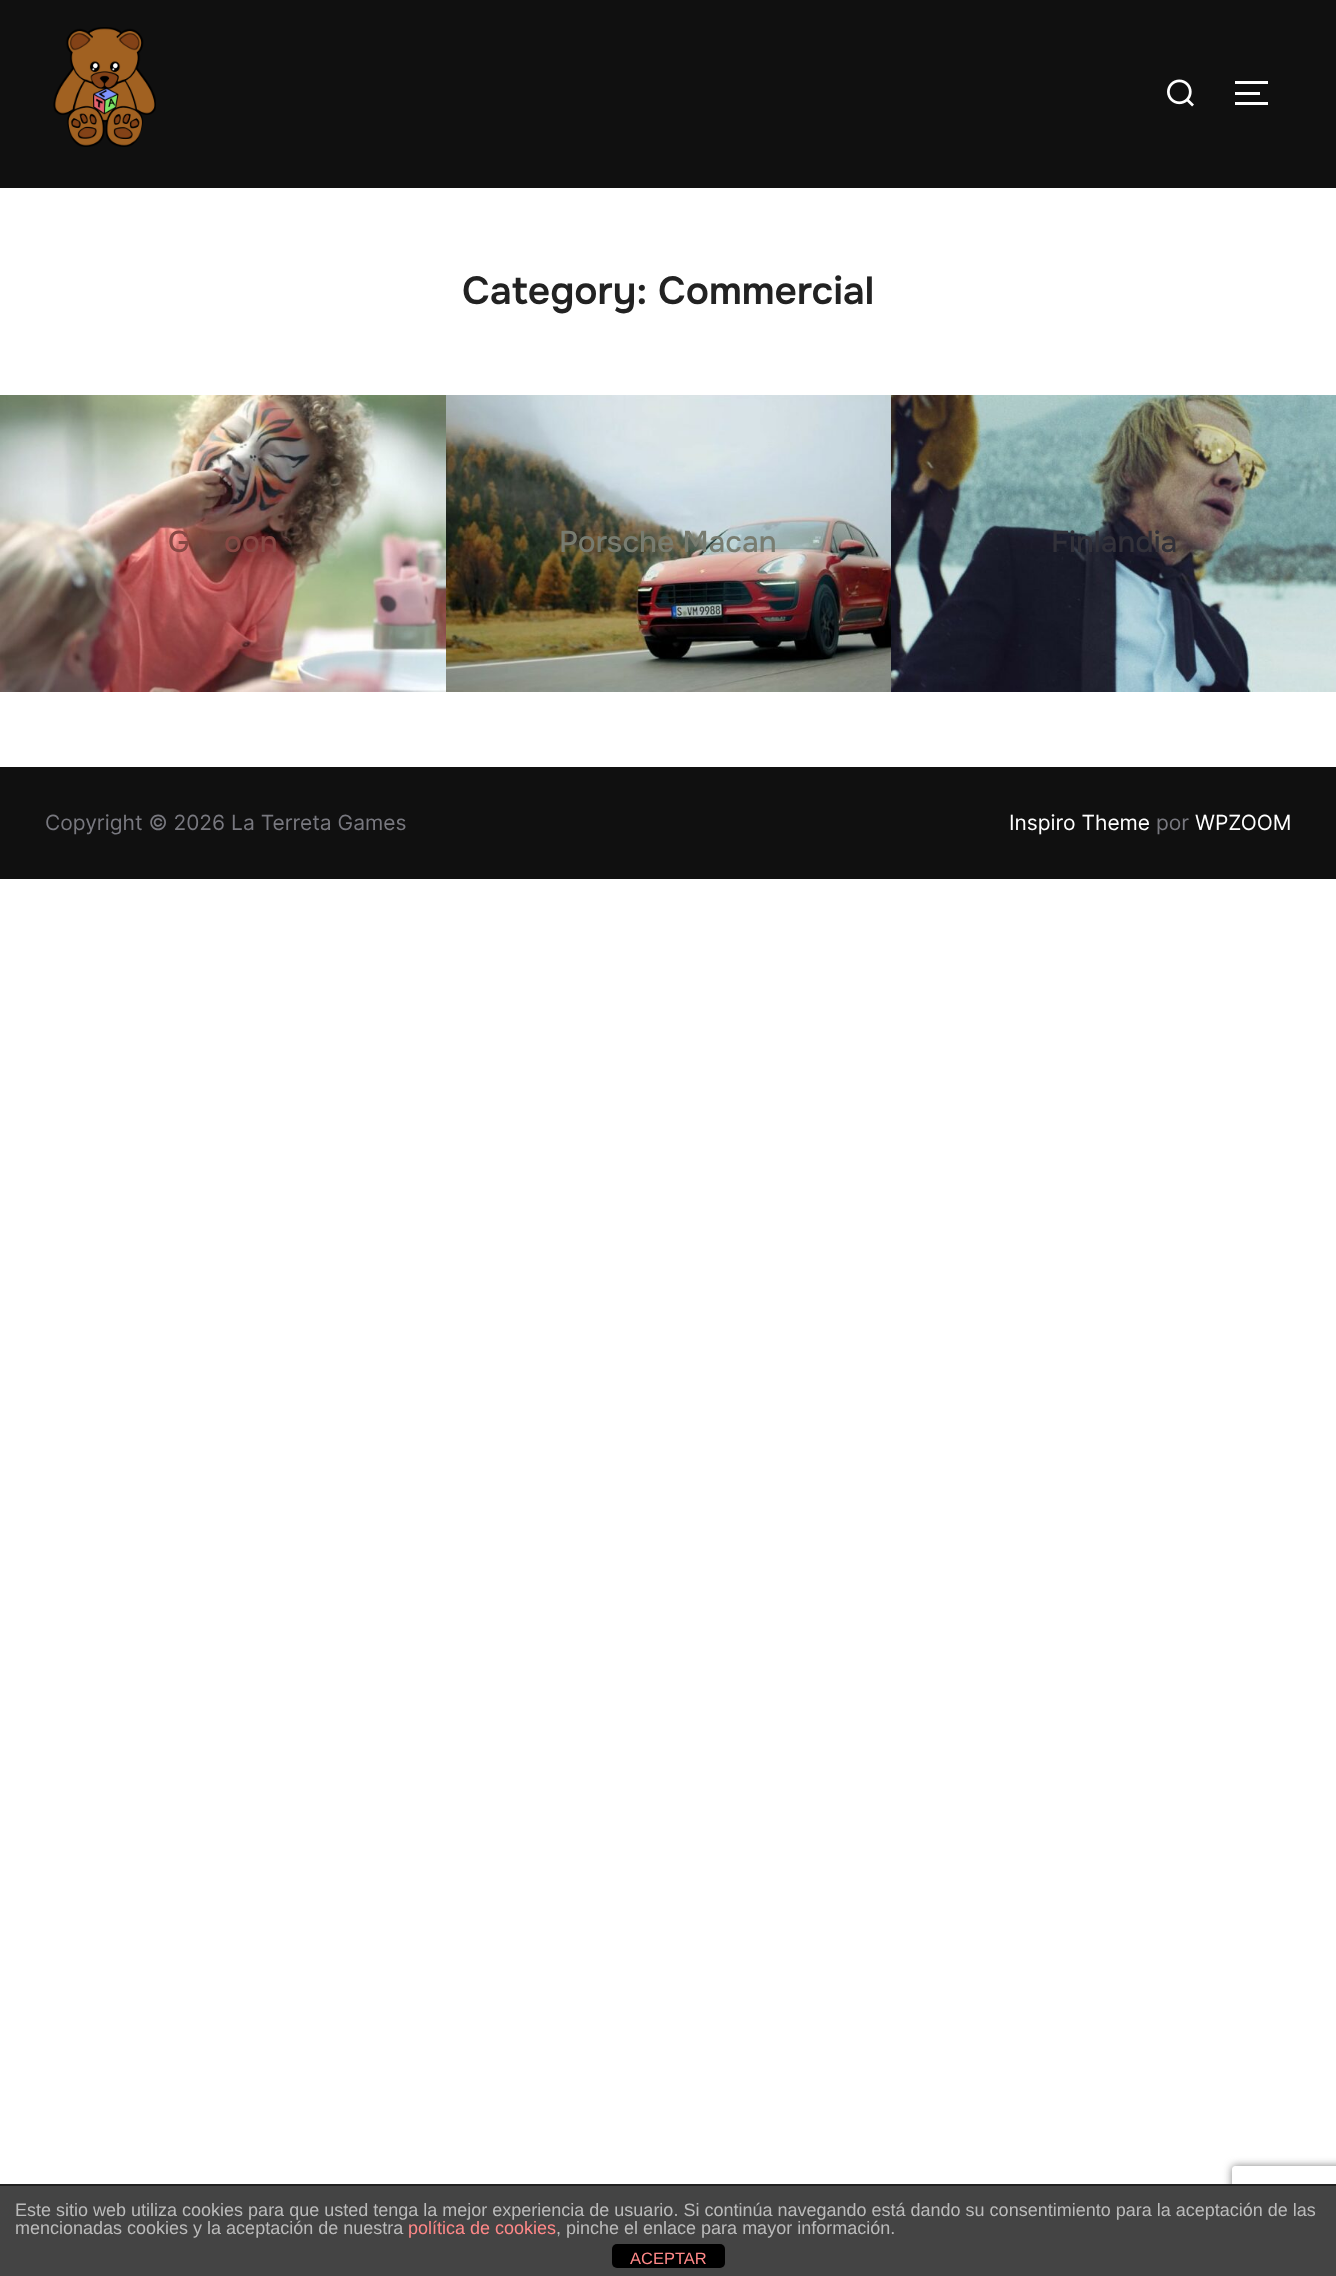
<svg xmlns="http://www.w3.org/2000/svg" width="1336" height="2276">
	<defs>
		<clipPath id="clip1"><path d="M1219 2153H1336V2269H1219ZM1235 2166H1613C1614.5 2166 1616 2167.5 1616 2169V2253C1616 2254.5 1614.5 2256 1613 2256H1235C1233.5 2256 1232 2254.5 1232 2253V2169C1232 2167.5 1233.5 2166 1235 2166Z" clip-rule="evenodd" /></clipPath>
	</defs>
	<rect width="100%" height="100%" fill="#FFFFFF" />
	<rect x="0" y="0" width="1336" height="188" fill="#101010" />
	<image x="53" y="27" width="103" height="120" href="assets/img1.png" />
	<image x="1167" y="79" width="27" height="28" href="assets/img2.png" />
	<rect x="1235" y="81" width="33" height="3" fill="#FFFFFF" />
	<rect x="1235" y="92" width="25" height="3" fill="#FFFFFF" />
	<rect x="1235" y="102" width="33" height="3" fill="#FFFFFF" />
	<text x="462" y="304" font-family="Onest" font-size="39" font-weight="600" fill="#222222">Category: Commercial</text>
	<image x="0" y="395" width="446" height="297" href="assets/img3.png" />
	<g font-family="Onest" font-size="30" font-weight="500" fill="#874844">
		<text x="168" y="552">G</text>
		<text x="224" y="552">oon</text>
	</g>
	<image x="446" y="395" width="445" height="297" href="assets/img4.png" />
	<text x="559" y="552" font-family="Onest" font-size="30" font-weight="500" fill="#787C70">Porsche Macan</text>
	<image x="891" y="395" width="445" height="297" href="assets/img5.png" />
	<text x="1051" y="552" font-family="Onest" font-size="30" font-weight="500" fill="#323139">Finlandia</text>
	<rect x="0" y="767" width="1336" height="112" fill="#101010" />
	<text x="45" y="830" font-family="Inter" font-size="21" fill="#78787F">Copyright © 2026 La Terreta Games</text>
	<text x="1009" y="830" font-family="Inter" font-size="21" fill="#FFFFFF">Inspiro Theme</text>
	<text x="1156" y="830" font-family="Inter" font-size="21" fill="#78787F">por</text>
	<text x="1195" y="830" font-family="Inter" font-size="21" fill="#FFFFFF">WPZOOM</text>
	<g clip-path="url(#clip1)">
		<rect x="1232" y="2166" width="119" height="90" rx="3" fill="#808080" filter="blur(4px)" />
	</g>
	<rect x="0" y="2186" width="1336" height="90" fill="#444444" />
	<rect x="0" y="2184" width="1336" height="2" fill="#222222" />
	<g font-family="Liberation Sans" font-size="18" fill="#BBBBBB">
		<text x="15" y="2216">Este sitio web utiliza cookies para que usted tenga la mejor experiencia de usuario. Si continúa navegando está dando su consentimiento para la aceptación de las</text>
		<text x="15" y="2234">mencionadas cookies y la aceptación de nuestra</text>
	</g>
	<text x="408" y="2234" font-family="Liberation Sans" font-size="18" fill="#FF8888">política de cookies</text>
	<text x="556" y="2234" font-family="Liberation Sans" font-size="18" fill="#BBBBBB">, pinche el enlace para mayor información.</text>
	<rect x="612" y="2244" width="113" height="24" rx="5" fill="#000000" />
	<text x="630" y="2264" font-family="Liberation Sans" font-size="16.5" fill="#FF8888">ACEPTAR</text>
</svg>
